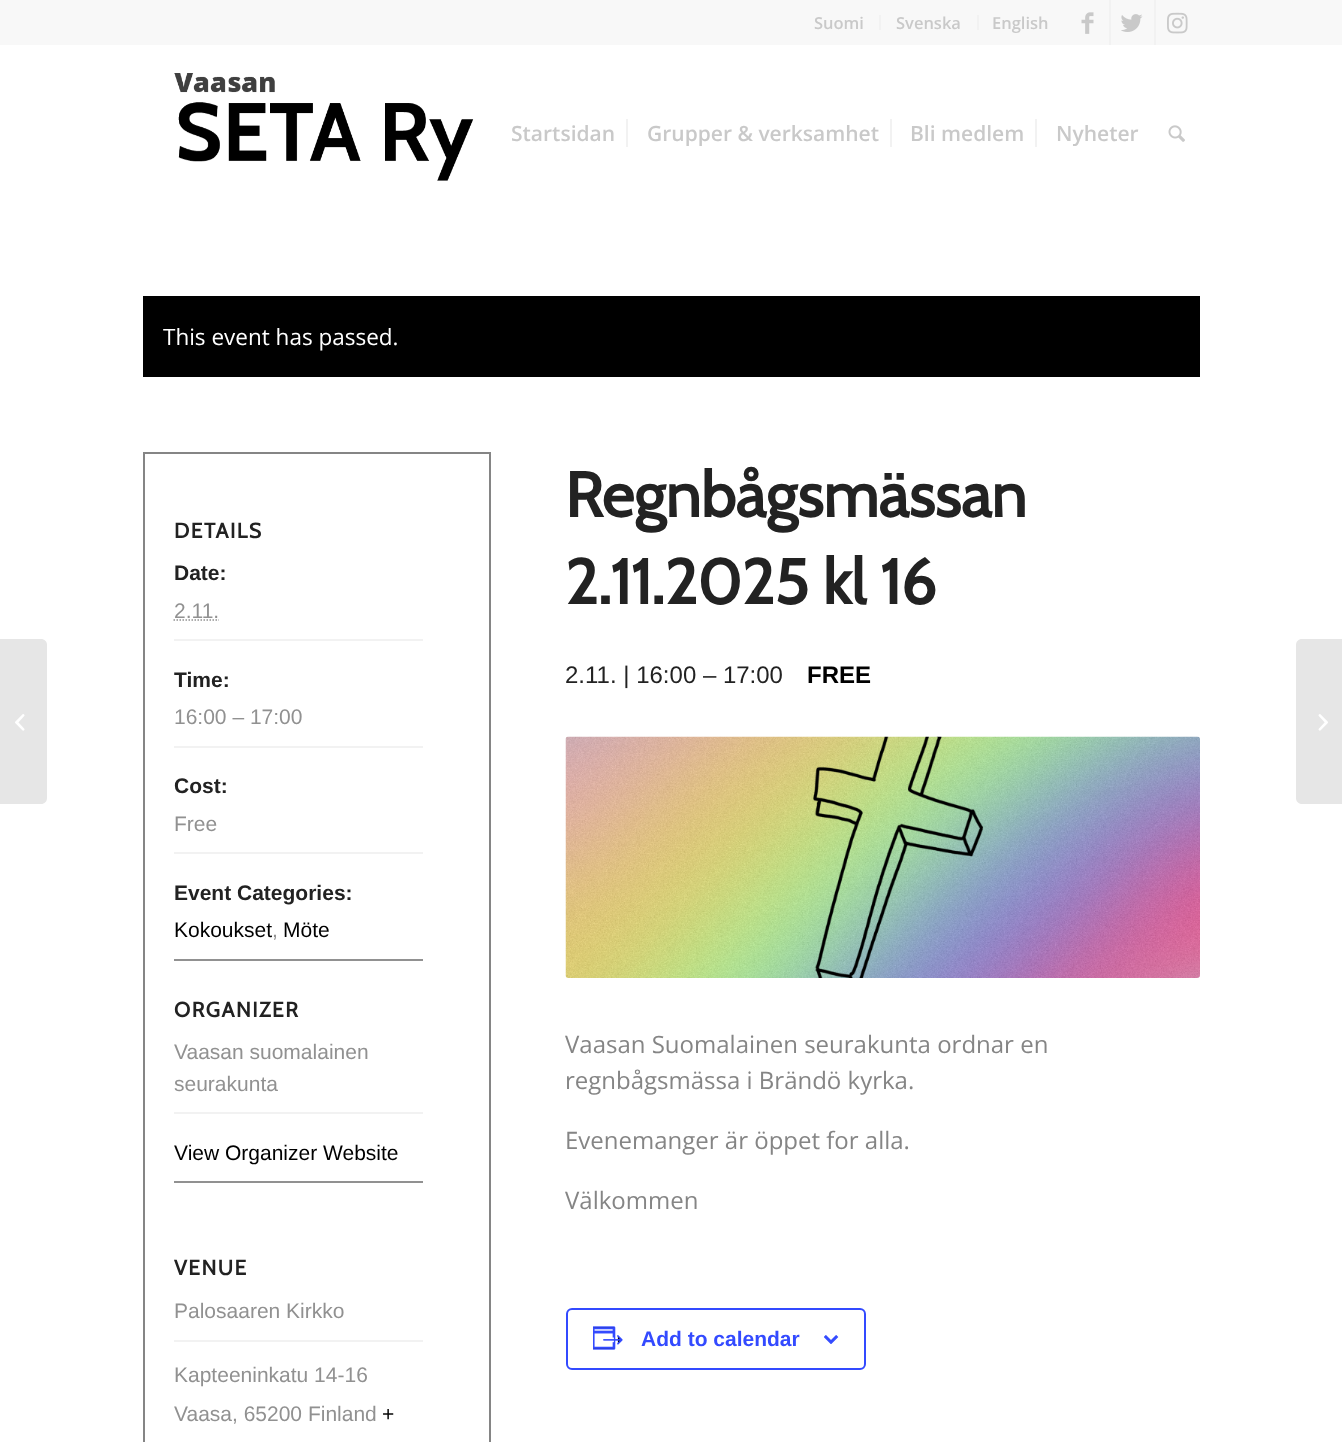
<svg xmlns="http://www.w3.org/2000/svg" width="1342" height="1442">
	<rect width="100%" height="100%" fill="#FFFFFF" />
	<rect x="0" y="0" width="1342" height="45" fill="#F8F8F8" />
	<rect x="879" y="15" width="2" height="15" fill="#F2F2F2" />
	<text x="814" y="29" font-family="Open Sans" font-size="16.5" font-weight="600" fill="#C9C9C9">Suomi</text>
	<rect x="977" y="15" width="2" height="15" fill="#F2F2F2" />
	<g font-family="Open Sans" font-size="16.5" font-weight="600" fill="#C9C9C9">
		<text x="896" y="29">Svenska</text>
		<text x="992" y="29">English</text>
	</g>
	<rect x="1109" y="0" width="2" height="45" fill="#F2F2F2" />
	<image x="1081" y="12" width="13" height="22" href="assets/img1.png" />
	<rect x="1154" y="0" width="2" height="45" fill="#F2F2F2" />
	<image x="1121" y="14" width="22" height="18" href="assets/img2.png" />
	<image x="1167" y="12" width="21" height="22" href="assets/img3.png" />
	<image x="174" y="73" width="300" height="108" href="assets/img4.png" />
	<g font-family="Open Sans" font-size="21" font-weight="600" fill="#C9C9C9">
		<text x="511" y="141">Startsidan</text>
		<text x="647" y="141">Grupper &amp; verksamhet</text>
	</g>
	<rect x="626" y="119" width="2" height="28" fill="#F2F2F2" />
	<text x="910" y="141" font-family="Open Sans" font-size="21" font-weight="600" fill="#C9C9C9">Bli medlem</text>
	<rect x="890" y="119" width="2" height="28" fill="#F2F2F2" />
	<text x="1056" y="141" font-family="Open Sans" font-size="21" font-weight="600" fill="#C9C9C9">Nyheter</text>
	<rect x="1035" y="119" width="2" height="28" fill="#F2F2F2" />
	<image x="1168" y="125" width="17" height="17" href="assets/img5.png" />
	<path d="M0 639H41C44.5 639 47 641.5 47 645V798C47 801.5 44.5 804 41 804H0Z" fill="#E6E6E6" />
	<image x="15" y="714" width="10" height="17" href="assets/img6.png" />
	<rect x="143" y="296" width="1057" height="81" fill="#000000" />
	<text x="163" y="345" font-family="Open Sans" font-size="22.5" fill="#FFFFFF">This event has passed.</text>
	<rect x="144" y="453" width="346" height="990" fill="none" stroke="#858585" stroke-width="2" />
	<text x="174" y="538" font-family="Cabin" font-size="21" font-weight="700" letter-spacing="1.5" fill="#222222">DETAILS</text>
	<text x="174" y="580" font-family="Liberation Sans" font-size="21" font-weight="700" fill="#222222">Date:</text>
	<rect x="174" y="639" width="249" height="2" fill="#F2F2F2" />
	<text x="174" y="618" font-family="Liberation Sans" font-size="21" fill="#919191">2.11.</text>
	<path d="M173.5 620H219" fill="none" stroke="#919191" stroke-width="1.5" stroke-dasharray="1.5 1.5" />
	<text x="174" y="687" font-family="Liberation Sans" font-size="21" font-weight="700" fill="#222222">Time:</text>
	<rect x="174" y="746" width="249" height="2" fill="#F2F2F2" />
	<text x="174" y="724" font-family="Liberation Sans" font-size="21" fill="#919191">16:00 – 17:00</text>
	<text x="174" y="793" font-family="Liberation Sans" font-size="21" font-weight="700" fill="#222222">Cost:</text>
	<rect x="174" y="852" width="249" height="2" fill="#F2F2F2" />
	<text x="174" y="831" font-family="Liberation Sans" font-size="21" fill="#919191">Free</text>
	<text x="174" y="900" font-family="Liberation Sans" font-size="21" font-weight="700" fill="#222222">Event Categories:</text>
	<rect x="174" y="959" width="249" height="2" fill="#919191" />
	<text x="174" y="937" font-family="Liberation Sans" font-size="21" fill="#000000">Kokoukset</text>
	<text x="272" y="937" font-family="Liberation Sans" font-size="21" fill="#919191">,</text>
	<text x="283" y="937" font-family="Liberation Sans" font-size="21" fill="#000000">Möte</text>
	<text x="174" y="1017" font-family="Cabin" font-size="21" font-weight="700" letter-spacing="1.5" fill="#222222">ORGANIZER</text>
	<rect x="174" y="1112" width="249" height="2" fill="#F2F2F2" />
	<g font-family="Liberation Sans" font-size="21" fill="#919191">
		<text x="174" y="1059">Vaasan suomalainen</text>
		<text x="174" y="1091">seurakunta</text>
	</g>
	<rect x="174" y="1181" width="249" height="2" fill="#919191" />
	<text x="174" y="1160" font-family="Liberation Sans" font-size="21" fill="#000000">View Organizer Website</text>
	<text x="174" y="1275" font-family="Cabin" font-size="21" font-weight="700" letter-spacing="1.5" fill="#222222">VENUE</text>
	<rect x="174" y="1340" width="249" height="2" fill="#F2F2F2" />
	<g font-family="Liberation Sans" font-size="21" fill="#919191">
		<text x="174" y="1318">Palosaaren Kirkko</text>
		<text x="174" y="1382">Kapteeninkatu 14-16</text>
		<text x="174" y="1421">Vaasa, 65200 Finland</text>
	</g>
	<text x="382" y="1421" font-family="Liberation Sans" font-size="21" fill="#000000">+</text>
	<g font-family="Cabin" font-size="63" font-weight="700" fill="#222222">
		<text x="565" y="517">Regnbågsmässan</text>
		<text x="565" y="604">2.11.2025 kl 16</text>
	</g>
	<text x="565" y="683" font-family="Liberation Sans" font-size="24" fill="#222222">2.11. | 16:00 – 17:00</text>
	<text x="807" y="683" font-family="Liberation Sans" font-size="24" font-weight="700" fill="#000000">FREE</text>
	<image x="565" y="736" width="635" height="242" href="assets/img7.png" />
	<g font-family="Open Sans" font-size="24" fill="#858585">
		<text x="565" y="1053">Vaasan Suomalainen seurakunta ordnar en</text>
		<text x="565" y="1089">regnbågsmässa i Brändö kyrka.</text>
		<text x="565" y="1149">Evenemanger är öppet for alla.</text>
		<text x="565" y="1209">Välkommen</text>
	</g>
	<rect x="567" y="1309" width="298" height="60" rx="5" fill="none" stroke="#334AFF" stroke-width="2" />
	<image x="593" y="1326" width="30" height="24" href="assets/img8.png" />
	<text x="641" y="1346" font-family="Liberation Sans" font-size="21" font-weight="700" fill="#334AFF">Add to calendar</text>
	<image x="824" y="1335" width="15" height="9" href="assets/img9.png" />
	<path d="M1302 639H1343V804H1302C1298.5 804 1296 801.5 1296 798V645C1296 641.5 1298.5 639 1302 639Z" fill="#E6E6E6" />
	<image x="1318" y="714" width="10" height="17" href="assets/img10.png" />
</svg>
